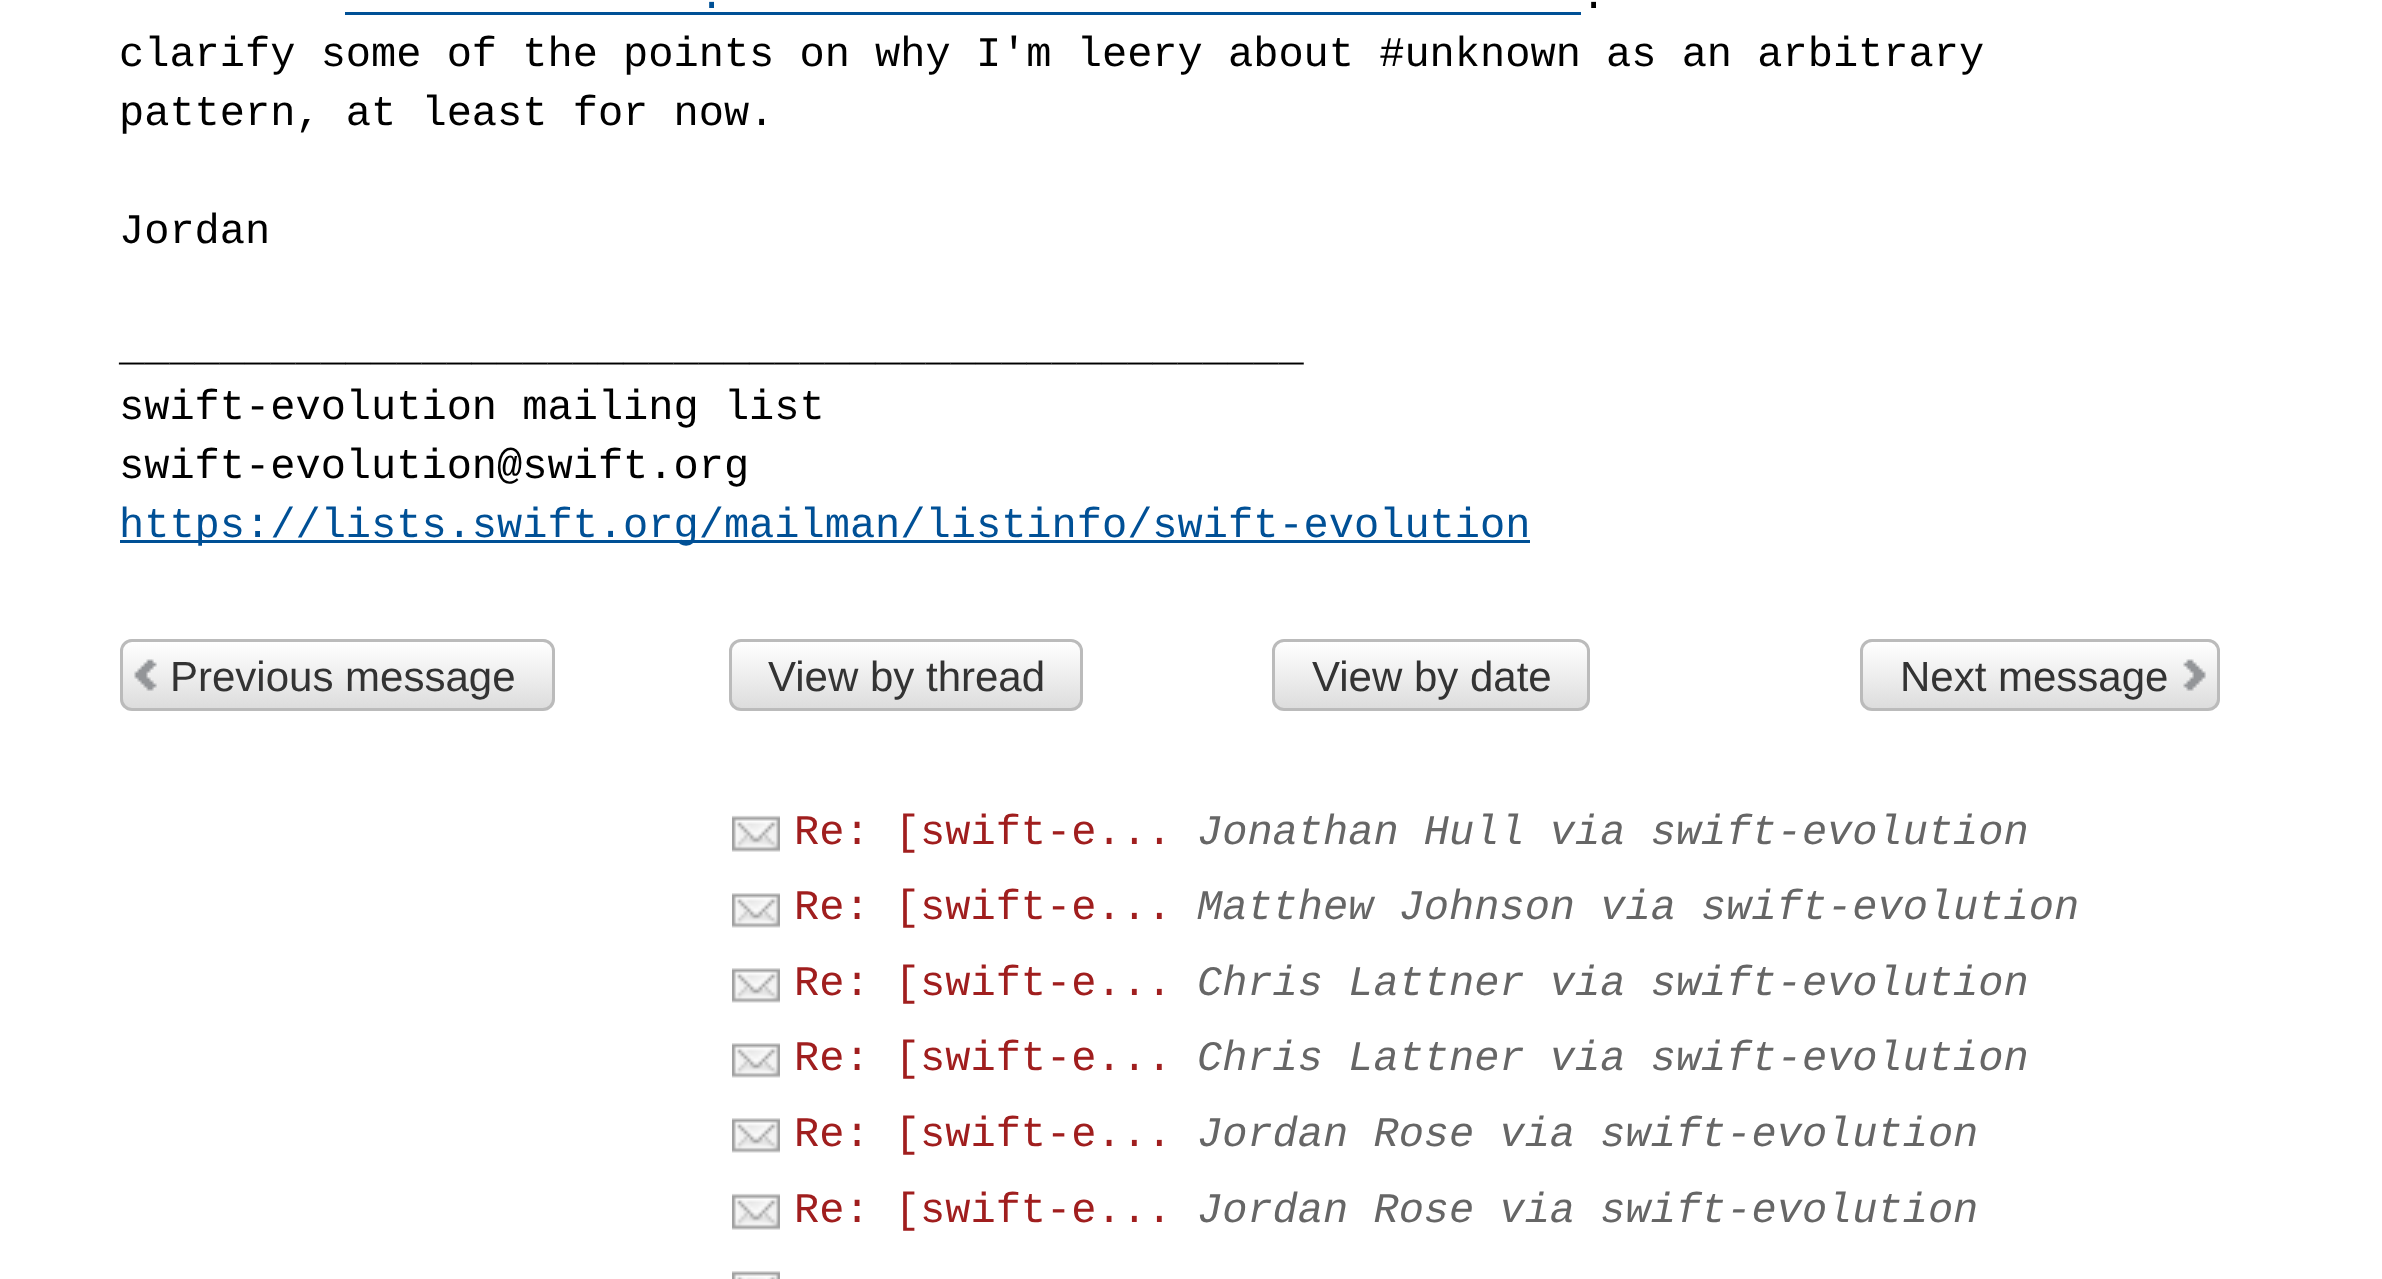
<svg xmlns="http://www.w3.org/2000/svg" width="2382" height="1279">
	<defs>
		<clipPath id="clip1"><rect x="729" y="639" width="354" height="72" rx="12" /></clipPath>
		<linearGradient id="g1" gradientUnits="userSpaceOnUse" x1="906" y1="642" x2="906" y2="708"><stop offset="0" stop-color="#FFFFFF" /><stop offset="1" stop-color="#DDDDDD" /></linearGradient>
		<clipPath id="clip2"><rect x="1272" y="639" width="318" height="72" rx="12" /></clipPath>
		<linearGradient id="g2" gradientUnits="userSpaceOnUse" x1="1431" y1="642" x2="1431" y2="708"><stop offset="0" stop-color="#FFFFFF" /><stop offset="1" stop-color="#DDDDDD" /></linearGradient>
	</defs>
	<rect width="100%" height="100%" fill="#FFFFFF" />
	<text x="699" y="8" font-family="Liberation Mono" font-size="42" fill="#005096">.</text>
	<rect x="345" y="12" width="1236" height="3" fill="#005096" />
	<g font-family="Liberation Mono" font-size="42" fill="#000000">
		<text x="1581" y="8">.</text>
		<text x="119" y="66">clarify some of the points on why I'm leery about #unknown as an arbitrary</text>
		<text x="119" y="125">pattern, at least for now.</text>
		<text x="119" y="243">Jordan</text>
		<text x="119" y="360">_______________________________________________</text>
		<text x="119" y="419">swift-evolution mailing list</text>
		<text x="119" y="478">swift-evolution@swift.org</text>
	</g>
	<rect x="120" y="540" width="1410" height="3" fill="#005096" />
	<text x="119" y="537" font-family="Liberation Mono" font-size="42" fill="#005096">https://lists.swift.org/mailman/listinfo/swift-evolution</text>
	<image x="120" y="639" width="435" height="72" href="assets/img1.png" />
	<rect x="121.5" y="640.5" width="432" height="69" rx="10.5" fill="none" stroke="#BBBBBB" stroke-width="3" />
	<text x="170" y="691" font-family="Liberation Sans" font-size="42" fill="#333333">Previous message</text>
	<g clip-path="url(#clip1)">
		<rect x="729" y="642" width="354" height="66" fill="url(#g1)" />
	</g>
	<rect x="730.5" y="640.5" width="351" height="69" rx="10.5" fill="none" stroke="#BBBBBB" stroke-width="3" />
	<text x="768" y="691" font-family="Liberation Sans" font-size="42" fill="#333333">View by thread</text>
	<g clip-path="url(#clip2)">
		<rect x="1272" y="642" width="318" height="66" fill="url(#g2)" />
	</g>
	<rect x="1273.5" y="640.5" width="315" height="69" rx="10.5" fill="none" stroke="#BBBBBB" stroke-width="3" />
	<text x="1312" y="691" font-family="Liberation Sans" font-size="42" fill="#333333">View by date</text>
	<image x="1860" y="639" width="360" height="72" href="assets/img2.png" />
	<rect x="1861.5" y="640.5" width="357" height="69" rx="10.5" fill="none" stroke="#BBBBBB" stroke-width="3" />
	<text x="1900" y="691" font-family="Liberation Sans" font-size="42" fill="#333333">Next message</text>
	<image x="732" y="815" width="48" height="37" href="assets/img3.png" />
	<text x="794" y="844" font-family="Liberation Mono" font-size="42" fill="#A01E1E">Re: [swift-e...</text>
	<text x="1197" y="844" font-family="Liberation Mono" font-size="42" font-style="italic" fill="#666666">Jonathan Hull via swift-evolution</text>
	<image x="732" y="893" width="48" height="35" href="assets/img4.png" />
	<text x="794" y="919" font-family="Liberation Mono" font-size="42" fill="#A01E1E">Re: [swift-e...</text>
	<text x="1197" y="919" font-family="Liberation Mono" font-size="42" font-style="italic" fill="#666666">Matthew Johnson via swift-evolution</text>
	<image x="732" y="968" width="48" height="35" href="assets/img4.png" />
	<text x="794" y="995" font-family="Liberation Mono" font-size="42" fill="#A01E1E">Re: [swift-e...</text>
	<text x="1197" y="995" font-family="Liberation Mono" font-size="42" font-style="italic" fill="#666666">Chris Lattner via swift-evolution</text>
	<image x="732" y="1043" width="48" height="35" href="assets/img4.png" />
	<text x="794" y="1070" font-family="Liberation Mono" font-size="42" fill="#A01E1E">Re: [swift-e...</text>
	<text x="1197" y="1070" font-family="Liberation Mono" font-size="42" font-style="italic" fill="#666666">Chris Lattner via swift-evolution</text>
	<image x="732" y="1118" width="48" height="35" href="assets/img4.png" />
	<text x="794" y="1146" font-family="Liberation Mono" font-size="42" fill="#A01E1E">Re: [swift-e...</text>
	<text x="1197" y="1146" font-family="Liberation Mono" font-size="42" font-style="italic" fill="#666666">Jordan Rose via swift-evolution</text>
	<image x="732" y="1193" width="48" height="37" href="assets/img3.png" />
	<text x="794" y="1222" font-family="Liberation Mono" font-size="42" fill="#A01E1E">Re: [swift-e...</text>
	<text x="1197" y="1222" font-family="Liberation Mono" font-size="42" font-style="italic" fill="#666666">Jordan Rose via swift-evolution</text>
	<image x="732" y="1271" width="48" height="8" href="assets/img5.png" />
</svg>
